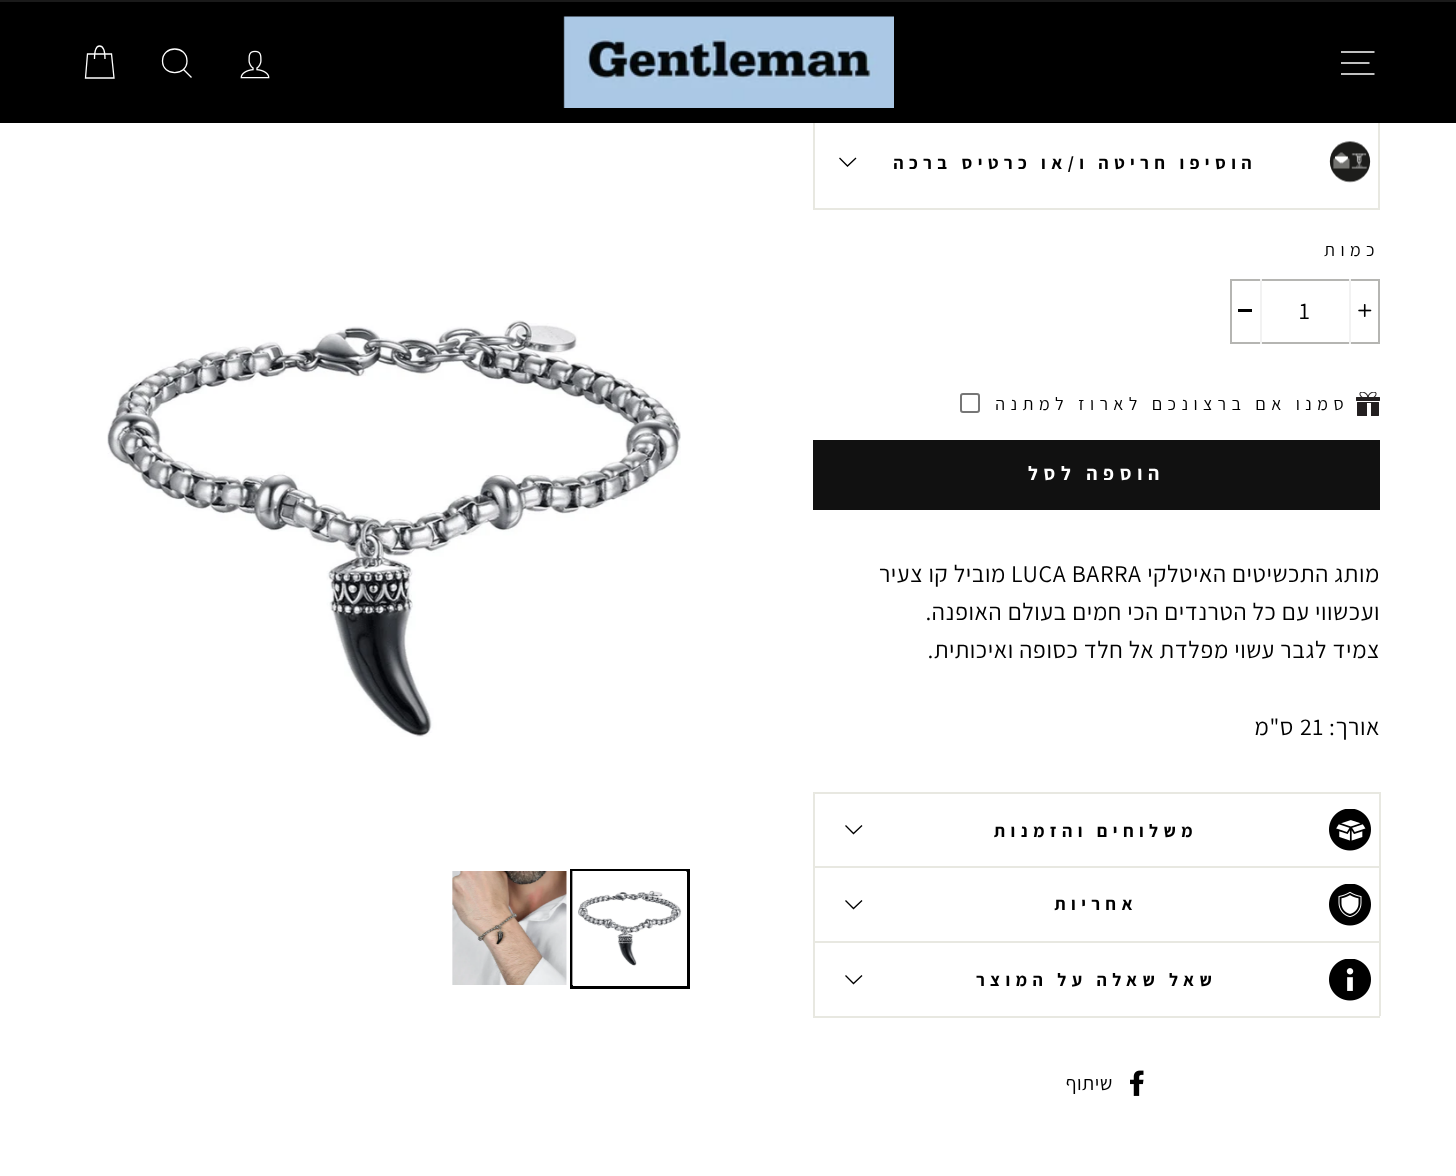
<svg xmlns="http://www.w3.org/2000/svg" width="1456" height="1176">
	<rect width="100%" height="100%" fill="#FFFFFF" />
	<rect x="814" y="115" width="565" height="94" fill="none" stroke="#E8E8E1" stroke-width="2" />
	<rect x="0" y="2" width="1456" height="121" fill="#000000" />
	<rect x="0" y="0" width="1456" height="2" fill="#1A1A1A" />
	<path d="M1341 52H1374.5M1341 63H1369.5M1341 74H1374.5" fill="none" stroke="#FFFFFF" stroke-width="1.3" />
	<image x="563" y="16" width="331" height="92" href="assets/img1.png" />
	<image x="240" y="50" width="30" height="29" href="assets/img2.png" />
	<path d="M187 61C187 76.5 162.5 76.5 162.5 61C162.5 45 187 45 187 61ZM191.5 77.5L183.5 69.5" fill="none" stroke="#FFFFFF" stroke-width="1.3" />
	<path d="M94.5 59C94.5 48.5 96.5 46 99.5 46C102.5 46 105 48.5 105 59M87.5 54H111.5L114 78H85.5Z" fill="none" stroke="#FFFFFF" stroke-width="1.3" />
	<image x="1329" y="141" width="42" height="42" href="assets/img3.png" />
	<text x="1257" y="169" font-family="Assistant" font-size="18" font-weight="700" letter-spacing="5.4" direction="rtl" fill="#000000">הוסיפו חריטה ו/או כרטיס ברכה</text>
	<path d="M839.5 158L847.5 166L856 158" fill="none" stroke="#000000" stroke-width="1.3" />
	<text x="1380" y="256" font-family="Assistant" font-size="18" letter-spacing="5.4" direction="rtl" fill="#000000">כמות</text>
	<rect x="1231" y="280" width="148" height="63" fill="none" stroke="#B5B5B2" stroke-width="2" />
	<rect x="1349" y="279" width="2" height="65" fill="#F2F2F2" />
	<image x="1358" y="304" width="14" height="13" href="assets/img4.png" />
	<text x="1299" y="319" font-family="Assistant" font-size="24" letter-spacing="0.6" fill="#000000">1</text>
	<rect x="1260" y="279" width="2" height="65" fill="#F2F2F2" />
	<rect x="1238" y="309" width="14" height="3" fill="#000000" />
	<image x="1356" y="392" width="24" height="24" href="assets/img5.png" />
	<text x="1349" y="410" font-family="Assistant" font-size="18" letter-spacing="5.4" direction="rtl" fill="#000000">סמנו אם ברצונכם לארוז למתנה</text>
	<rect x="961" y="394" width="18" height="18" rx="2" fill="none" stroke="#767676" stroke-width="2" />
	<rect x="813" y="440" width="567" height="70" fill="#111111" />
	<text x="1165" y="480" font-family="Assistant" font-size="19.5" font-weight="700" letter-spacing="5.75" direction="rtl" fill="#FFFFFF">הוספה לסל</text>
	<text x="1380" y="582" font-family="Assistant" font-size="24" letter-spacing="0.6" direction="rtl" fill="#000000">מותג התכשיטים האיטלקי</text>
	<text x="1011" y="582" font-family="Assistant" font-size="24" letter-spacing="0.6" fill="#000000">LUCA BARRA</text>
	<g font-family="Assistant" font-size="24" letter-spacing="0.6" direction="rtl" fill="#000000">
		<text x="1006" y="582">מוביל קו צעיר</text>
		<text x="1380" y="620">ועכשווי עם כל הטרנדים הכי חמים בעולם האופנה.</text>
		<text x="1380" y="658">צמיד לגבר עשוי מפלדת אל חלד כסופה ואיכותית.</text>
		<text x="1380" y="735">אורך:</text>
	</g>
	<text x="1300" y="735" font-family="Assistant" font-size="24" letter-spacing="0.6" fill="#000000">21</text>
	<text x="1294" y="735" font-family="Assistant" font-size="24" letter-spacing="0.6" direction="rtl" fill="#000000">ס"מ</text>
	<rect x="813" y="1016" width="567" height="2" fill="#E8E8E1" />
	<rect x="813" y="792" width="567" height="2" fill="#E8E8E1" />
	<rect x="1379" y="792" width="2" height="75" fill="#E8E8E1" />
	<rect x="813" y="792" width="2" height="75" fill="#E8E8E1" />
	<image x="1329" y="809" width="42" height="42" href="assets/img6.png" />
	<text x="1198" y="837" font-family="Assistant" font-size="18" font-weight="700" letter-spacing="5.4" direction="rtl" fill="#000000">משלוחים והזמנות</text>
	<path d="M845.5 825.5L853.5 833.5L862 825.5" fill="none" stroke="#000000" stroke-width="1.3" />
	<rect x="813" y="866" width="567" height="2" fill="#E8E8E1" />
	<rect x="1379" y="866" width="2" height="75" fill="#E8E8E1" />
	<rect x="813" y="866" width="2" height="75" fill="#E8E8E1" />
	<image x="1329" y="884" width="42" height="42" href="assets/img7.png" />
	<text x="1138" y="910" font-family="Assistant" font-size="18" font-weight="700" letter-spacing="5.4" direction="rtl" fill="#000000">אחריות</text>
	<path d="M845.5 900.5L853.5 908.5L862 900.5" fill="none" stroke="#000000" stroke-width="1.3" />
	<rect x="813" y="941" width="567" height="2" fill="#E8E8E1" />
	<rect x="1379" y="941" width="2" height="75" fill="#E8E8E1" />
	<rect x="813" y="941" width="2" height="75" fill="#E8E8E1" />
	<image x="1329" y="959" width="42" height="42" href="assets/img8.png" />
	<text x="1217" y="986" font-family="Assistant" font-size="18" font-weight="700" letter-spacing="5.4" direction="rtl" fill="#000000">שאל שאלה על המוצר</text>
	<path d="M845.5 975.5L853.5 983.5L862 975.5" fill="none" stroke="#000000" stroke-width="1.3" />
	<image x="1130" y="1070" width="14" height="26" href="assets/img9.png" />
	<text x="1113" y="1090" font-family="Assistant" font-size="20" letter-spacing="0.6" direction="rtl" fill="#000000">שיתוף</text>
	<image x="107" y="320" width="574" height="417" href="assets/img10.png" />
	<rect x="571.5" y="870.5" width="117" height="117" fill="none" stroke="#000000" stroke-width="3" />
	<image x="572" y="871" width="115" height="114" href="assets/img11.png" />
	<image x="452" y="871" width="115" height="114" href="assets/img12.png" />
</svg>
